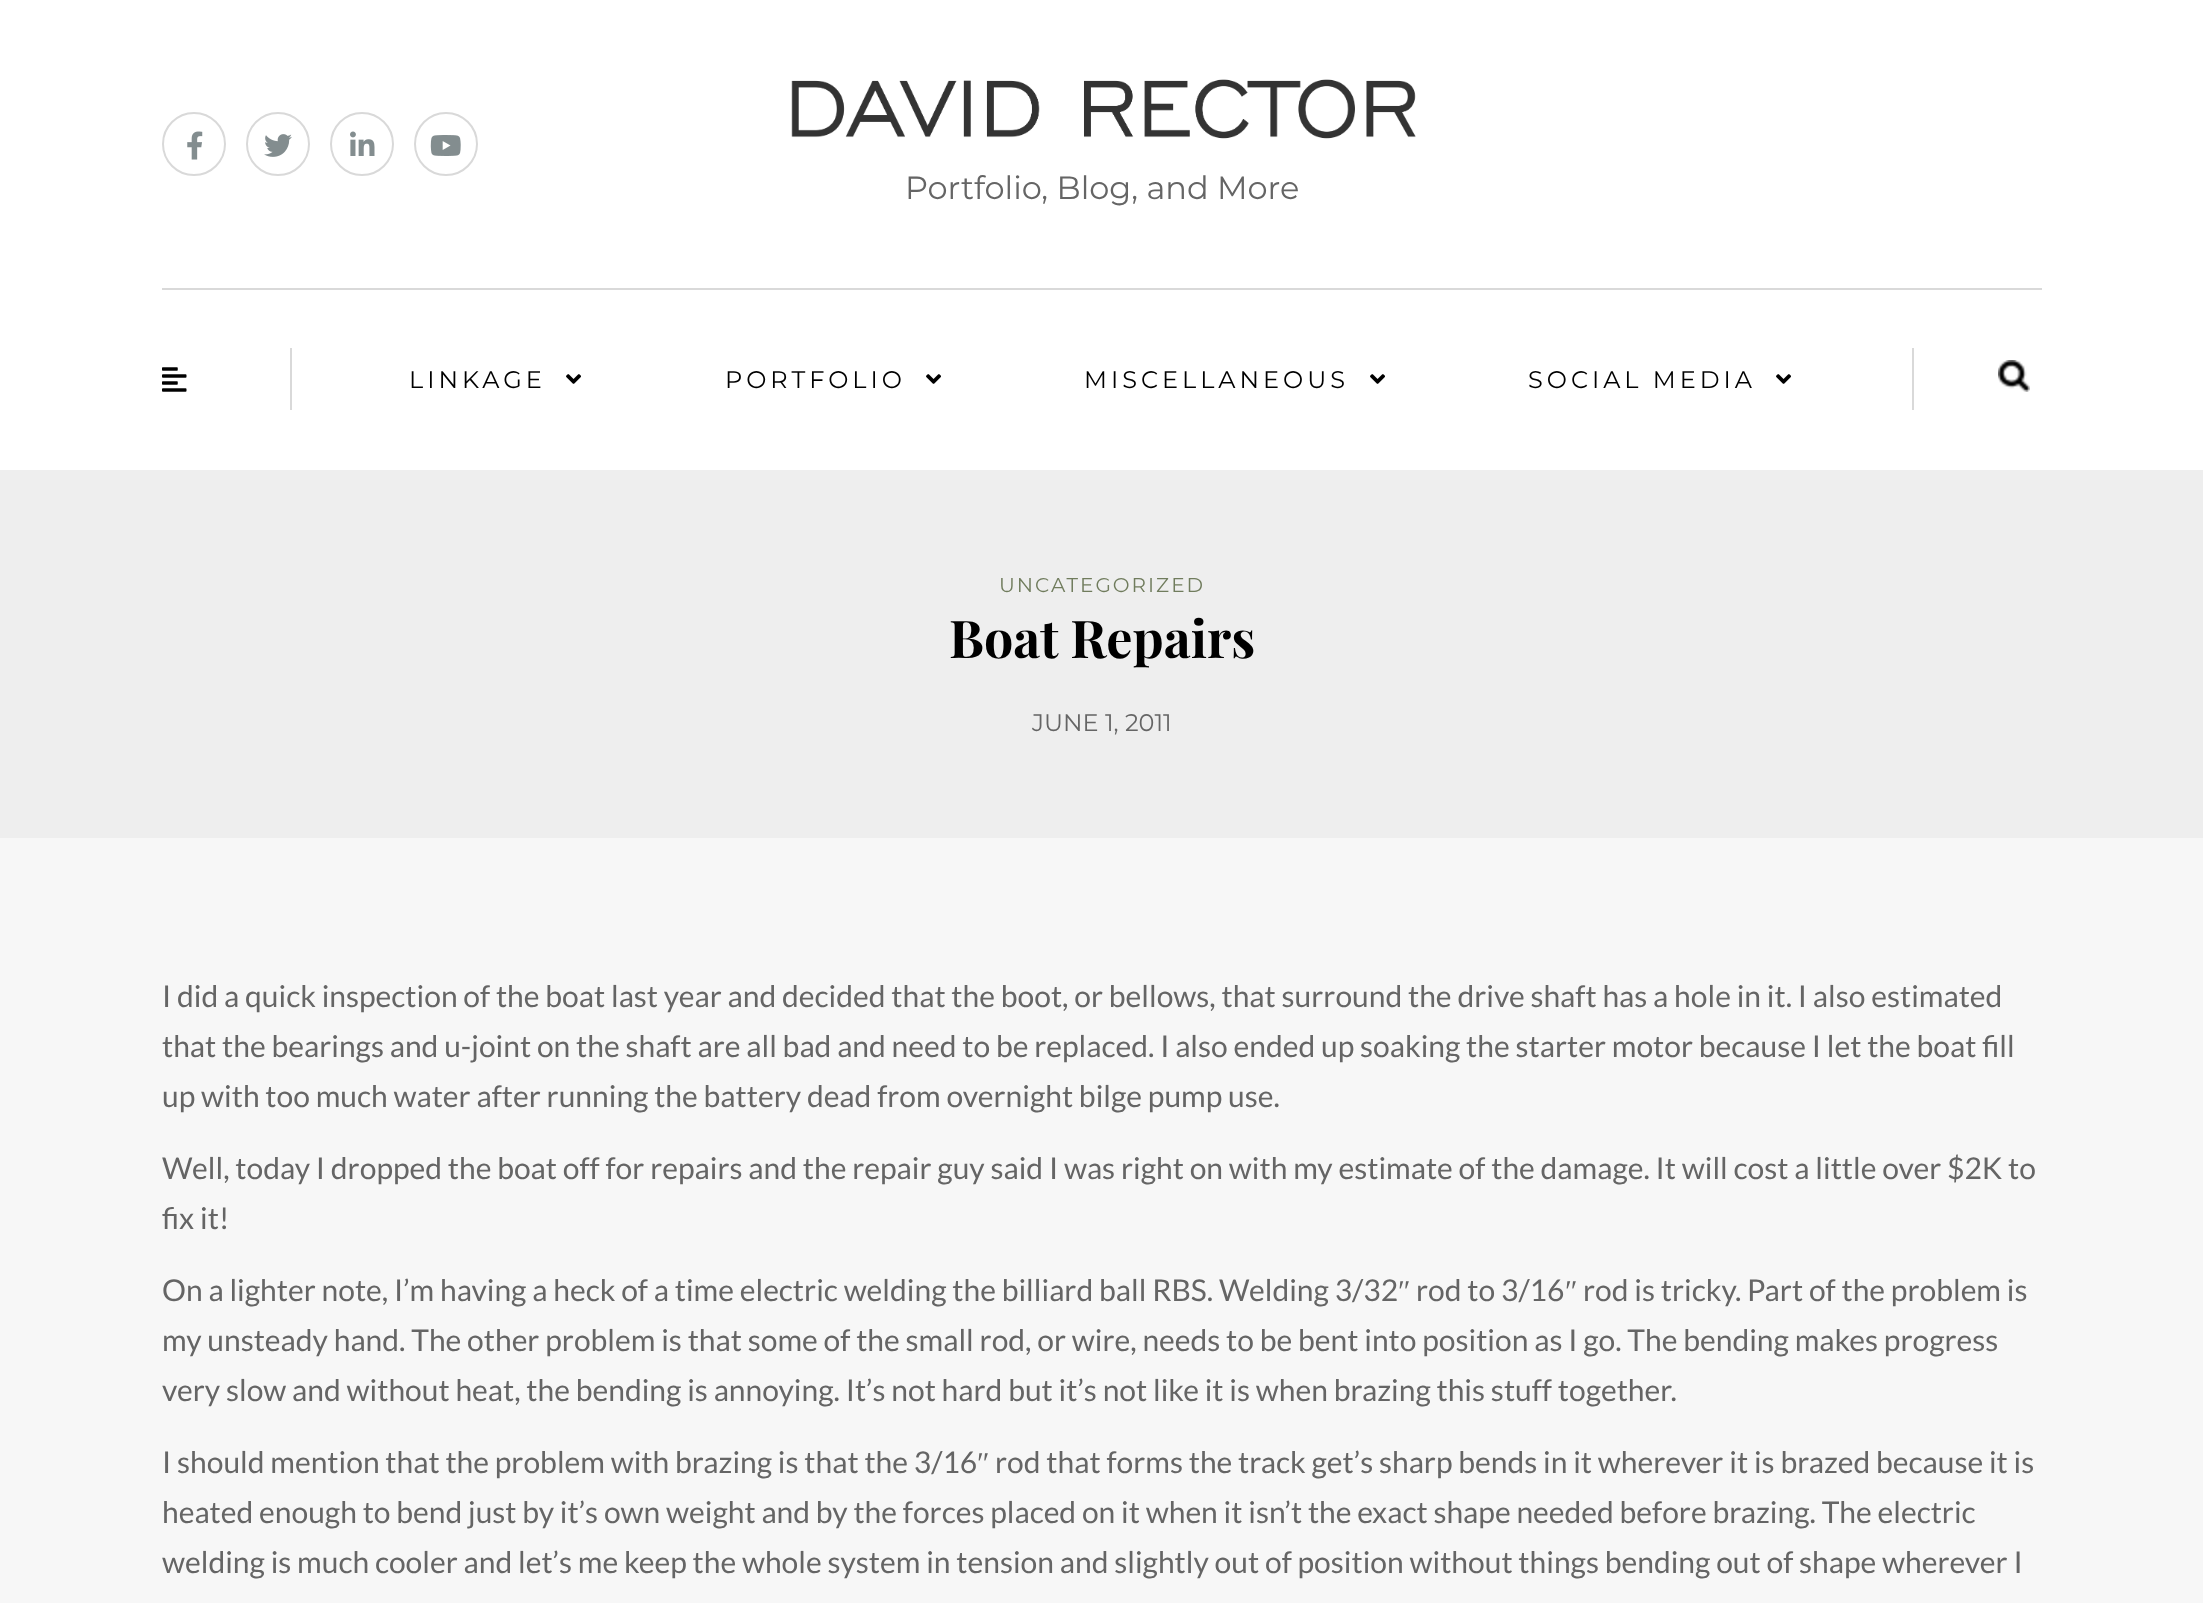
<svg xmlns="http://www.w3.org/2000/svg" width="2203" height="1603">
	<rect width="100%" height="100%" fill="#F7F7F7" />
	<rect x="0" y="0" width="2203" height="470" fill="#FFFFFF" />
	<circle cx="194" cy="144" r="31" fill="none" stroke="#D9D9D9" stroke-width="2" />
	<image x="187" y="131" width="16" height="29" href="assets/img1.png" />
	<circle cx="278" cy="144" r="31" fill="none" stroke="#D9D9D9" stroke-width="2" />
	<image x="264" y="134" width="28" height="23" href="assets/img2.png" />
	<circle cx="362" cy="144" r="31" fill="none" stroke="#D9D9D9" stroke-width="2" />
	<image x="350" y="131" width="25" height="25" href="assets/img3.png" />
	<circle cx="446" cy="144" r="31" fill="none" stroke="#D9D9D9" stroke-width="2" />
	<image x="430" y="135" width="31" height="21" href="assets/img4.png" />
	<image x="791" y="79" width="625" height="60" href="assets/img5.png" />
	<text x="905" y="199" font-family="Montserrat" font-size="32" font-weight="100" fill="#656565">Portfolio, Blog, and More</text>
	<rect x="290" y="348" width="2" height="62" fill="#D9D9D9" />
	<image x="162" y="367" width="25" height="25" href="assets/img6.png" />
	<rect x="162" y="288" width="1880" height="2" fill="#D9D9D9" />
	<text x="409" y="388" font-family="Montserrat" font-size="24" font-weight="100" letter-spacing="4" fill="#000000">LINKAGE</text>
	<image x="566" y="374" width="15" height="10" href="assets/img7.png" />
	<text x="725" y="388" font-family="Montserrat" font-size="24" font-weight="100" letter-spacing="4" fill="#000000">PORTFOLIO</text>
	<image x="926" y="374" width="15" height="10" href="assets/img7.png" />
	<text x="1084" y="388" font-family="Montserrat" font-size="24" font-weight="100" letter-spacing="4" fill="#000000">MISCELLANEOUS</text>
	<image x="1370" y="374" width="15" height="10" href="assets/img7.png" />
	<text x="1528" y="388" font-family="Montserrat" font-size="24" font-weight="100" letter-spacing="4" fill="#000000">SOCIAL MEDIA</text>
	<image x="1776" y="374" width="15" height="10" href="assets/img7.png" />
	<rect x="1912" y="348" width="2" height="62" fill="#D9D9D9" />
	<image x="1998" y="360" width="32" height="32" href="assets/img8.png" />
	<rect x="0" y="470" width="2203" height="368" fill="#EEEEEE" />
	<text x="999" y="592" font-family="Montserrat" font-size="20" font-weight="100" letter-spacing="2" fill="#707C5D">UNCATEGORIZED</text>
	<text x="949" y="658" font-family="Playfair Display" font-size="52" font-weight="700" fill="#000000">Boat Repairs</text>
	<text x="1032" y="731" font-family="Montserrat" font-size="24" font-weight="100" fill="#656565">JUNE 1, 2011</text>
	<g font-family="Lato" font-size="30" fill="#656565">
		<text x="162" y="1007">I did a quick inspection of the boat last year and decided that the boot, or bellows, that surround the drive shaft has a hole in it. I also estimated</text>
		<text x="162" y="1057">that the bearings and u-joint on the shaft are all bad and need to be replaced. I also ended up soaking the starter motor because I let the boat fill</text>
		<text x="162" y="1107">up with too much water after running the battery dead from overnight bilge pump use.</text>
		<text x="162" y="1179">Well, today I dropped the boat off for repairs and the repair guy said I was right on with my estimate of the damage. It will cost a little over $2K to</text>
		<text x="162" y="1229">fix it!</text>
		<text x="162" y="1301">On a lighter note, I’m having a heck of a time electric welding the billiard ball RBS. Welding 3/32</text>
	</g>
	<text x="1398" y="1301" font-family="Liberation Serif" font-size="30" fill="#656565">″</text>
	<text x="1416" y="1301" font-family="Lato" font-size="30" fill="#656565">rod to 3/16</text>
	<text x="1565" y="1301" font-family="Liberation Serif" font-size="30" fill="#656565">″</text>
	<g font-family="Lato" font-size="30" fill="#656565">
		<text x="1583" y="1301">rod is tricky. Part of the problem is</text>
		<text x="162" y="1351">my unsteady hand. The other problem is that some of the small rod, or wire, needs to be bent into position as I go. The bending makes progress</text>
		<text x="162" y="1401">very slow and without heat, the bending is annoying. It’s not hard but it’s not like it is when brazing this stuff together.</text>
		<text x="162" y="1473">I should mention that the problem with brazing is that the 3/16</text>
	</g>
	<text x="977" y="1473" font-family="Liberation Serif" font-size="30" fill="#656565">″</text>
	<g font-family="Lato" font-size="30" fill="#656565">
		<text x="995" y="1473">rod that forms the track get’s sharp bends in it wherever it is brazed because it is</text>
		<text x="162" y="1523">heated enough to bend just by it’s own weight and by the forces placed on it when it isn’t the exact shape needed before brazing. The electric</text>
		<text x="162" y="1573">welding is much cooler and let’s me keep the whole system in tension and slightly out of position without things bending out of shape wherever I</text>
	</g>
</svg>
